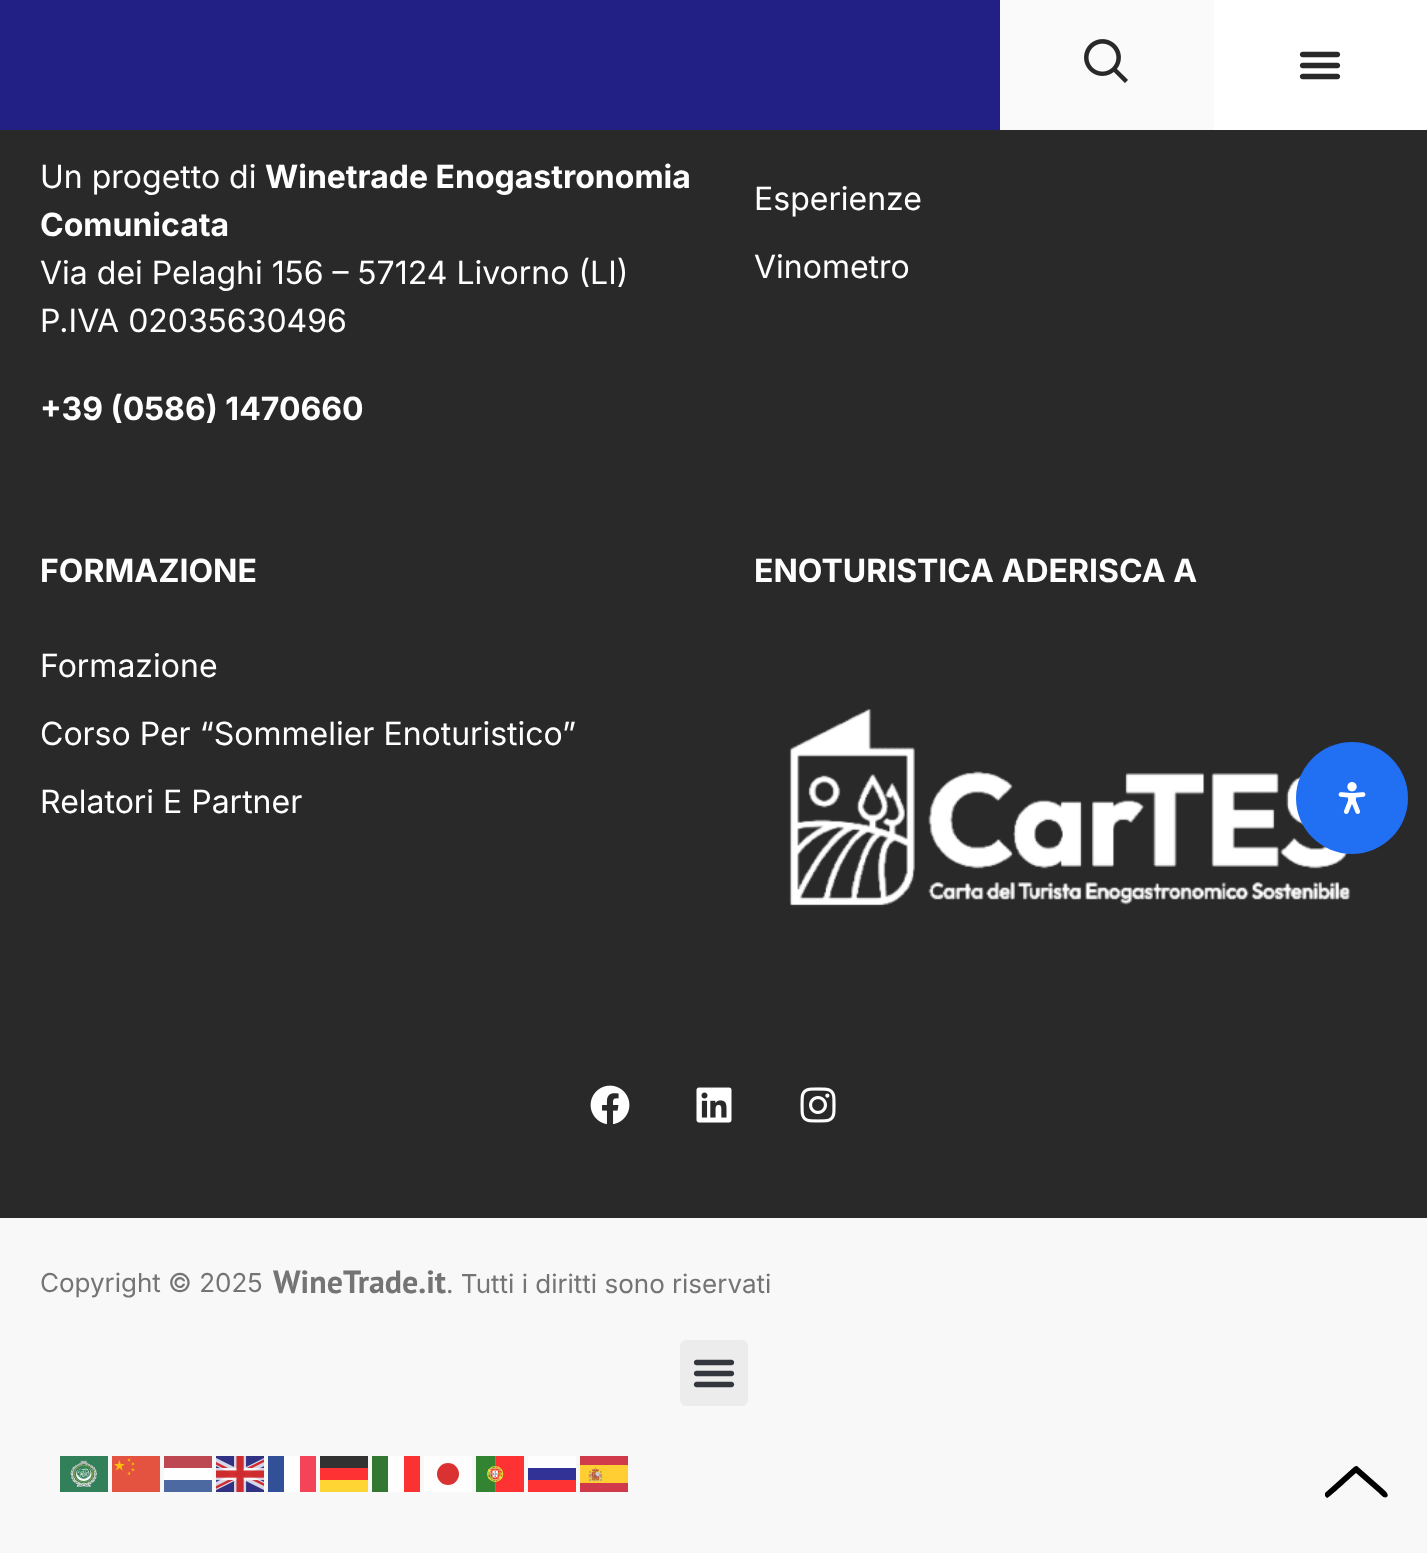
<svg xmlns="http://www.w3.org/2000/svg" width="1427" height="1553">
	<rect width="100%" height="100%" fill="#292929" />
	<rect x="0" y="0" width="1000" height="130" fill="#222085" />
	<rect x="1000" y="0" width="214" height="130" fill="#FAFAFA" />
	<image x="1084" y="39" width="44" height="44" href="assets/img1.png" />
	<rect x="1214" y="0" width="213" height="130" fill="#FFFFFF" />
	<image x="1299" y="51" width="42" height="29" href="assets/img2.png" />
	<text x="40" y="188" font-family="Inter" font-size="32" fill="#FFFFFF">Un progetto di</text>
	<g font-family="Inter" font-size="32" font-weight="700" fill="#FFFFFF">
		<text x="265" y="188">Winetrade Enogastronomia</text>
		<text x="40" y="236">Comunicata</text>
	</g>
	<g font-family="Inter" font-size="32" fill="#FFFFFF">
		<text x="40" y="284">Via dei Pelaghi 156 – 57124 Livorno (LI)</text>
		<text x="40" y="332">P.IVA 02035630496</text>
	</g>
	<text x="40" y="420" font-family="Inter" font-size="32" font-weight="700" fill="#FFFFFF">+39 (0586) 1470660</text>
	<g font-family="Inter" font-size="32" fill="#FFFFFF">
		<text x="754" y="210">Esperienze</text>
		<text x="754" y="278">Vinometro</text>
	</g>
	<text x="40" y="582" font-family="Inter" font-size="32" font-weight="700" fill="#FFFFFF">FORMAZIONE</text>
	<g font-family="Inter" font-size="32" fill="#FFFFFF">
		<text x="40" y="677">Formazione</text>
		<text x="40" y="745">Corso Per “Sommelier Enoturistico”</text>
		<text x="40" y="813">Relatori E Partner</text>
	</g>
	<text x="754" y="582" font-family="Inter" font-size="32" font-weight="700" fill="#FFFFFF">ENOTURISTICA ADERISCA A</text>
	<image x="789" y="708" width="562" height="199" href="assets/img3.png" />
	<image x="590" y="1085" width="40" height="40" href="assets/img4.png" />
	<image x="696" y="1087" width="36" height="36" href="assets/img5.png" />
	<image x="800" y="1087" width="36" height="36" href="assets/img6.png" />
	<rect x="0" y="1218" width="1427" height="335" fill="#F8F8F8" />
	<text x="40" y="1292" font-family="Inter" font-size="26" fill="#747474">Copyright © 2025</text>
	<text x="273" y="1293" font-family="PT Sans" font-size="32" font-weight="700" fill="#747474">WineTrade.it</text>
	<text x="446" y="1293" font-family="Inter" font-size="26" fill="#747474">. Tutti i diritti sono riservati</text>
	<rect x="680" y="1340" width="68" height="66" rx="6" fill="#ECECEC" />
	<image x="693" y="1359" width="42" height="29" href="assets/img7.png" />
	<image x="60" y="1456" width="48" height="36" href="assets/img8.png" />
	<image x="112" y="1456" width="48" height="36" href="assets/img9.png" />
	<rect x="164" y="1456" width="48" height="12" fill="#BD4852" />
	<image x="216" y="1456" width="48" height="36" href="assets/img10.png" />
	<rect x="268" y="1456" width="16" height="36" fill="#325097" />
	<rect x="284" y="1456" width="16" height="36" fill="#FEFEFE" />
	<rect x="300" y="1456" width="16" height="36" fill="#F44558" />
	<rect x="320" y="1456" width="48" height="12" fill="#323232" />
	<rect x="372" y="1456" width="16" height="36" fill="#327732" />
	<rect x="388" y="1456" width="16" height="36" fill="#FEFEFE" />
	<rect x="404" y="1456" width="16" height="36" fill="#FB3232" />
	<rect x="424" y="1456" width="48" height="36" fill="#FEFEFE" />
	<image x="476" y="1456" width="48" height="36" href="assets/img11.png" />
	<rect x="528" y="1456" width="48" height="12" fill="#FEFEFE" />
	<image x="580" y="1456" width="48" height="36" href="assets/img12.png" />
	<rect x="164" y="1468" width="48" height="12" fill="#FEFEFE" />
	<rect x="320" y="1468" width="48" height="12" fill="#FE3232" />
	<circle cx="448" cy="1474" r="11" fill="#DA3232" />
	<rect x="528" y="1468" width="48" height="12" fill="#323296" />
	<rect x="164" y="1480" width="48" height="12" fill="#4C6AA1" />
	<rect x="320" y="1480" width="48" height="12" fill="#FED532" />
	<rect x="528" y="1480" width="48" height="12" fill="#FD3232" />
	<circle cx="1352" cy="798" r="56" fill="#216FF3" />
	<image x="1338" y="782" width="28" height="32" href="assets/img13.png" />
	<path d="M1354 1467L1325 1493V1496L1327 1498C1329 1498 1352 1476 1356 1473L1379 1493C1380 1494 1384 1499 1387 1497C1390 1494 1383 1489 1382 1488L1357 1466C1356 1466 1355 1466 1354 1467Z" fill="#000000" />
</svg>
